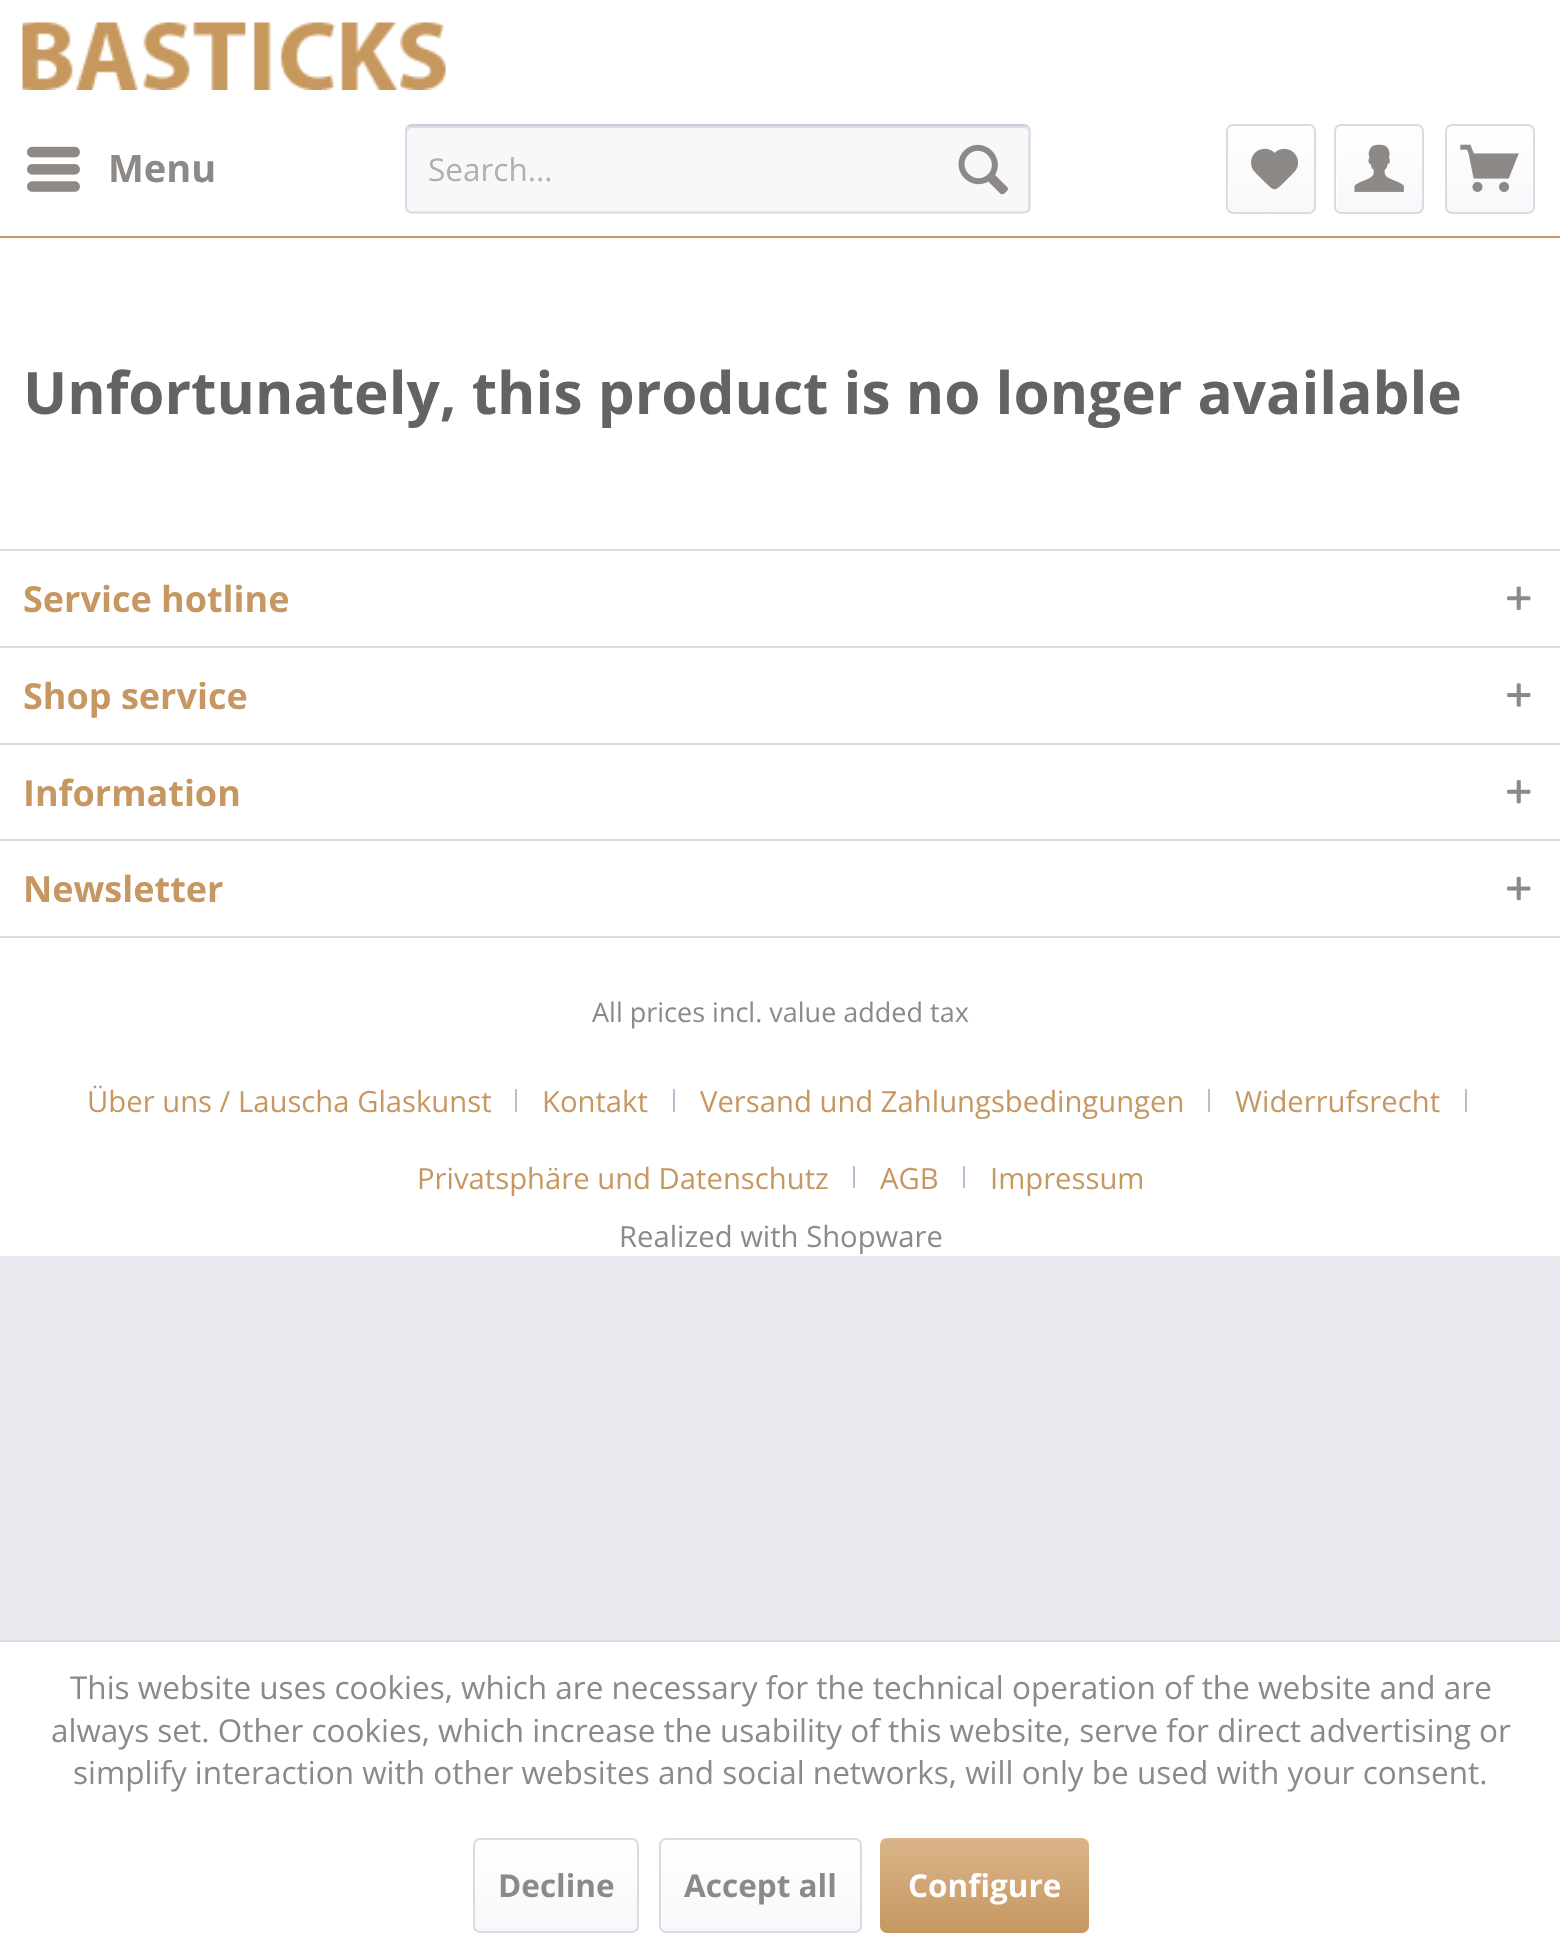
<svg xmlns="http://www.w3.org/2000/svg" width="1560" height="1955">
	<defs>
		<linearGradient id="g1" gradientUnits="userSpaceOnUse" x1="1271" y1="126" x2="1271" y2="212"><stop offset="0" stop-color="#FFFFFF" /><stop offset="1" stop-color="#F8F8FA" /></linearGradient>
		<linearGradient id="g2" gradientUnits="userSpaceOnUse" x1="1379" y1="126" x2="1379" y2="212"><stop offset="0" stop-color="#FFFFFF" /><stop offset="1" stop-color="#F8F8FA" /></linearGradient>
		<linearGradient id="g3" gradientUnits="userSpaceOnUse" x1="1490" y1="126" x2="1490" y2="212"><stop offset="0" stop-color="#FFFFFF" /><stop offset="1" stop-color="#F8F8FA" /></linearGradient>
		<linearGradient id="g4" gradientUnits="userSpaceOnUse" x1="556" y1="1841" x2="556" y2="1931"><stop offset="0" stop-color="#FFFFFF" /><stop offset="1" stop-color="#F8F8FA" /></linearGradient>
		<linearGradient id="g5" gradientUnits="userSpaceOnUse" x1="761" y1="1841" x2="761" y2="1931"><stop offset="0" stop-color="#FFFFFF" /><stop offset="1" stop-color="#F8F8FA" /></linearGradient>
		<linearGradient id="g6" gradientUnits="userSpaceOnUse" x1="984" y1="1838" x2="984" y2="1933"><stop offset="0" stop-color="#DAB58A" /><stop offset="1" stop-color="#C69761" /></linearGradient>
	</defs>
	<rect width="100%" height="100%" fill="#E9E9F0" />
	<rect x="0" y="0" width="1560" height="549" fill="#FFFFFF" />
	<rect x="0" y="236" width="1560" height="2" fill="#C69761" />
	<image x="22" y="22" width="424" height="68" href="assets/img1.png" />
	<image x="27" y="146" width="53" height="46" href="assets/img2.png" />
	<text x="108" y="182" font-family="Open Sans" font-size="38" font-weight="700" fill="#8C8987">Menu</text>
	<rect x="405" y="124" width="626" height="90" rx="7" fill="#F8F8FA" />
	<path d="M412 128H1024C1026 128 1028 130 1028 133C1028 130 1027 126 1023 126H412C408 126 407 130 407 133C407 130 409 128 412 128Z" fill="#DADAE5" />
	<path d="M408 126.5C409 125.5 410.5 125 412 125H1024C1025 125 1026.5 125.5 1027.5 126.5" fill="none" stroke="#CBCBDB" stroke-width="2.2" />
	<path d="M1027.5 126.5C1029 127.5 1029.5 129 1029.5 130.5V207C1029.5 208.5 1029 210 1027.5 211C1026.5 212 1025 212.5 1024 212.5H412C410.5 212.5 409 212 408 211C406.5 210 406 208.5 406 207V130.5C406 129 406.5 127.5 408 126.5" fill="none" stroke="#DADAE5" stroke-width="2.2" />
	<text x="428" y="181" font-family="Open Sans" font-size="31.5" fill="#B1AFAE">Search...</text>
	<image x="958" y="144" width="50" height="51" href="assets/img3.png" />
	<rect x="1229" y="126" width="85" height="86" rx="5" fill="url(#g1)" />
	<rect x="1227" y="125" width="88" height="88" rx="6" fill="none" stroke="#DADAE5" stroke-width="2" />
	<image x="1251" y="148" width="48" height="42" href="assets/img4.png" />
	<rect x="1337" y="126" width="85" height="86" rx="5" fill="url(#g2)" />
	<rect x="1335" y="125" width="88" height="88" rx="6" fill="none" stroke="#DADAE5" stroke-width="2" />
	<image x="1354" y="144" width="50" height="48" href="assets/img5.png" />
	<rect x="1447" y="126" width="85" height="86" rx="5" fill="url(#g3)" />
	<rect x="1446" y="125" width="88" height="88" rx="6" fill="none" stroke="#DADAE5" stroke-width="2" />
	<image x="1460" y="144" width="59" height="48" href="assets/img6.png" />
	<text x="23" y="414" font-family="Open Sans" font-size="58.5" font-weight="700" fill="#656361">Unfortunately, this product is no longer available</text>
	<rect x="0" y="551" width="1560" height="705" fill="#FFFFFF" />
	<rect x="0" y="549" width="1560" height="2" fill="#DADAE5" />
	<text x="23" y="612" font-family="Open Sans" font-size="36" font-weight="700" fill="#C69761">Service hotline</text>
	<image x="1507" y="586" width="24" height="24" href="assets/img7.png" />
	<rect x="0" y="646" width="1560" height="2" fill="#DADAE5" />
	<text x="23" y="709" font-family="Open Sans" font-size="36" font-weight="700" fill="#C69761">Shop service</text>
	<image x="1507" y="683" width="24" height="24" href="assets/img8.png" />
	<rect x="0" y="743" width="1560" height="2" fill="#DADAE5" />
	<text x="23" y="806" font-family="Open Sans" font-size="36" font-weight="700" fill="#C69761">Information</text>
	<image x="1507" y="780" width="24" height="24" href="assets/img9.png" />
	<rect x="0" y="839" width="1560" height="2" fill="#DADAE5" />
	<rect x="0" y="936" width="1560" height="2" fill="#DADAE5" />
	<text x="23" y="902" font-family="Open Sans" font-size="36" font-weight="700" fill="#C69761">Newsletter</text>
	<image x="1507" y="876" width="24" height="25" href="assets/img10.png" />
	<text x="592" y="1022" font-family="Open Sans" font-size="27" fill="#8C8987">All prices incl. value added tax</text>
	<text x="87" y="1112" font-family="Open Sans" font-size="29.25" fill="#C69761">Über uns / Lauscha Glaskunst</text>
	<rect x="515" y="1089" width="2" height="23" fill="#BCBCD0" />
	<text x="542" y="1112" font-family="Open Sans" font-size="29.25" fill="#C69761">Kontakt</text>
	<rect x="673" y="1089" width="2" height="23" fill="#BCBCD0" />
	<text x="700" y="1112" font-family="Open Sans" font-size="29.25" fill="#C69761">Versand und Zahlungsbedingungen</text>
	<rect x="1208" y="1089" width="2" height="23" fill="#BCBCD0" />
	<text x="1235" y="1112" font-family="Open Sans" font-size="29.25" fill="#C69761">Widerrufsrecht</text>
	<rect x="1465" y="1089" width="2" height="23" fill="#BCBCD0" />
	<text x="417" y="1189" font-family="Open Sans" font-size="29.25" fill="#C69761">Privatsphäre und Datenschutz</text>
	<rect x="853" y="1166" width="2" height="22" fill="#BCBCD0" />
	<text x="880" y="1189" font-family="Open Sans" font-size="29.25" fill="#C69761">AGB</text>
	<rect x="963" y="1166" width="2" height="22" fill="#BCBCD0" />
	<text x="990" y="1189" font-family="Open Sans" font-size="29.25" fill="#C69761">Impressum</text>
	<text x="619" y="1247" font-family="Open Sans" font-size="29.25" fill="#8C8987">Realized with Shopware</text>
	<rect x="0" y="1642" width="1560" height="313" fill="#FFFFFF" />
	<rect x="0" y="1640" width="1560" height="2" fill="#DADAE5" />
	<g font-family="Open Sans" font-size="31.5" fill="#8C8987">
		<text x="70" y="1699">This website uses cookies, which are necessary for the technical operation of the website and are</text>
		<text x="51" y="1742">always set. Other cookies, which increase the usability of this website, serve for direct advertising or</text>
		<text x="73" y="1784">simplify interaction with other websites and social networks, will only be used with your consent.</text>
	</g>
	<rect x="475" y="1841" width="162" height="90" rx="5" fill="url(#g4)" />
	<rect x="474" y="1839" width="164" height="93" rx="6" fill="none" stroke="#DADAE5" stroke-width="2" />
	<text x="498" y="1897" font-family="Open Sans" font-size="31.5" font-weight="700" fill="#8C8987">Decline</text>
	<rect x="662" y="1841" width="198" height="90" rx="5" fill="url(#g5)" />
	<rect x="660" y="1839" width="201" height="93" rx="6" fill="none" stroke="#DADAE5" stroke-width="2" />
	<text x="684" y="1897" font-family="Open Sans" font-size="31.5" font-weight="700" fill="#8C8987">Accept all</text>
	<rect x="880" y="1838" width="209" height="95" rx="7" fill="url(#g6)" />
	<text x="908" y="1897" font-family="Open Sans" font-size="31.5" font-weight="700" fill="#FFFFFF">Configure</text>
</svg>
